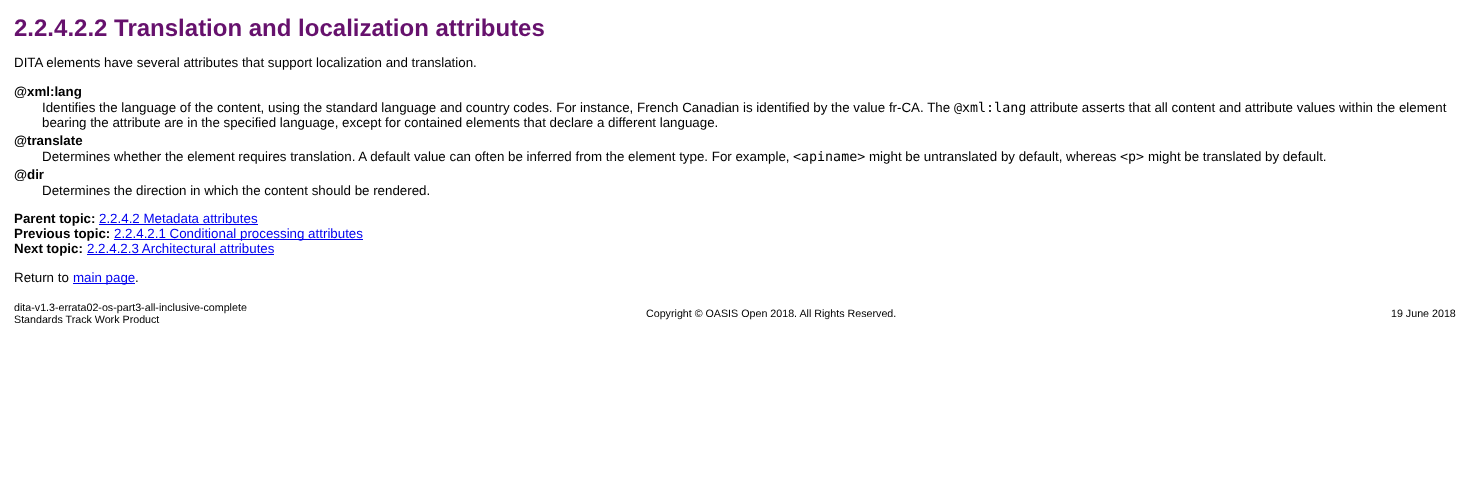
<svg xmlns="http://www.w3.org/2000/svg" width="1475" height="482">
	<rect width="100%" height="100%" fill="#FFFFFF" />
	<text x="14" y="36" font-family="Liberation Sans" font-size="24" font-weight="700" fill="#66116D">2.2.4.2.2 Translation and localization attributes</text>
	<text x="14" y="67" font-family="Liberation Sans" font-size="13.33" fill="#000000">DITA elements have several attributes that support localization and translation.</text>
	<text x="14" y="96" font-family="Liberation Sans" font-size="13.33" font-weight="700" fill="#000000">@xml:lang</text>
	<text x="42" y="112" font-family="Liberation Sans" font-size="13.33" fill="#000000">Identifies the language of the content, using the standard language and country codes. For instance, French Canadian is identified by the value fr-CA. The</text>
	<text x="954" y="112" font-family="DejaVu Sans Mono" font-size="13.33" fill="#000000">@xml:lang</text>
	<g font-family="Liberation Sans" font-size="13.33" fill="#000000">
		<text x="1030" y="112">attribute asserts that all content and attribute values within the element</text>
		<text x="42" y="127">bearing the attribute are in the specified language, except for contained elements that declare a different language.</text>
	</g>
	<text x="14" y="145" font-family="Liberation Sans" font-size="13.33" font-weight="700" fill="#000000">@translate</text>
	<text x="42" y="161" font-family="Liberation Sans" font-size="13.33" fill="#000000">Determines whether the element requires translation. A default value can often be inferred from the element type. For example,</text>
	<text x="793" y="161" font-family="DejaVu Sans Mono" font-size="13.33" fill="#000000">&lt;apiname&gt;</text>
	<text x="869" y="161" font-family="Liberation Sans" font-size="13.33" fill="#000000">might be untranslated by default, whereas</text>
	<text x="1120" y="161" font-family="DejaVu Sans Mono" font-size="13.33" fill="#000000">&lt;p&gt;</text>
	<text x="1148" y="161" font-family="Liberation Sans" font-size="13.33" fill="#000000">might be translated by default.</text>
	<text x="14" y="179" font-family="Liberation Sans" font-size="13.33" font-weight="700" fill="#000000">@dir</text>
	<text x="42" y="195" font-family="Liberation Sans" font-size="13.33" fill="#000000">Determines the direction in which the content should be rendered.</text>
	<text x="14" y="223" font-family="Liberation Sans" font-size="13.33" font-weight="700" fill="#000000">Parent topic:</text>
	<text x="99" y="223" font-family="Liberation Sans" font-size="13.33" fill="#0000EE">2.2.4.2 Metadata attributes</text>
	<rect x="99" y="224" width="159" height="1" fill="#0000EE" />
	<text x="14" y="238" font-family="Liberation Sans" font-size="13.33" font-weight="700" fill="#000000">Previous topic:</text>
	<rect x="114" y="239" width="249" height="1" fill="#0000EE" />
	<text x="114" y="238" font-family="Liberation Sans" font-size="13.33" fill="#0000EE">2.2.4.2.1 Conditional processing attributes</text>
	<text x="14" y="253" font-family="Liberation Sans" font-size="13.33" font-weight="700" fill="#000000">Next topic:</text>
	<text x="87" y="253" font-family="Liberation Sans" font-size="13.33" fill="#0000EE">2.2.4.2.3 Architectural attributes</text>
	<rect x="87" y="254" width="187" height="1" fill="#0000EE" />
	<text x="14" y="282" font-family="Liberation Sans" font-size="13.33" fill="#000000">Return to</text>
	<rect x="73" y="283" width="62" height="1" fill="#0000EE" />
	<text x="73" y="282" font-family="Liberation Sans" font-size="13.33" fill="#0000EE">main page</text>
	<text x="135" y="282" font-family="Liberation Sans" font-size="13.33" fill="#000000">.</text>
	<g font-family="Liberation Sans" font-size="10.7" fill="#000000">
		<text x="14" y="311">dita-v1.3-errata02-os-part3-all-inclusive-complete</text>
		<text x="14" y="323">Standards Track Work Product</text>
		<text x="646" y="317">Copyright © OASIS Open 2018. All Rights Reserved.</text>
		<text x="1391" y="317">19 June 2018</text>
	</g>
</svg>
